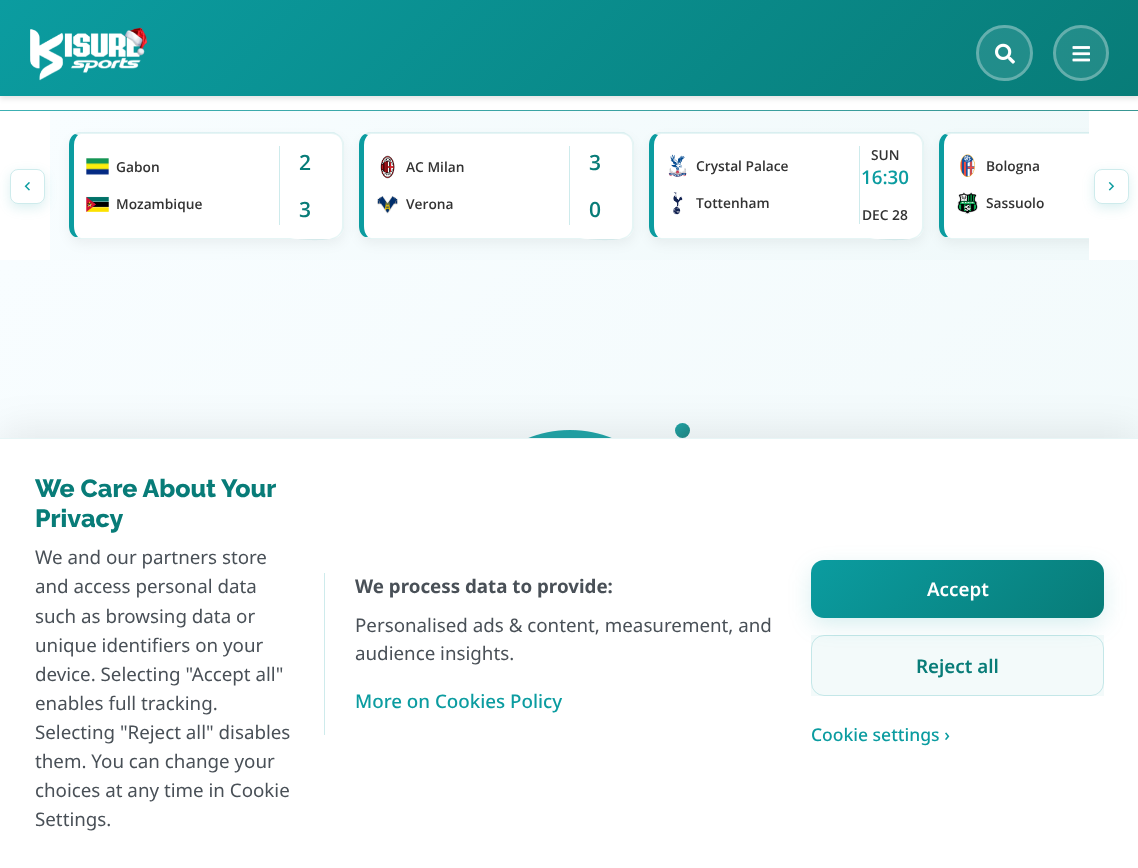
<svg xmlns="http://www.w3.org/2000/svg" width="1138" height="868">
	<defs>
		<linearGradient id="g1" gradientUnits="userSpaceOnUse" x1="284" y1="-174" x2="854" y2="396"><stop offset="0" stop-color="#3CB0B3" /><stop offset="1" stop-color="#399693" /></linearGradient>
		<linearGradient id="g2" gradientUnits="userSpaceOnUse" x1="261" y1="-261" x2="878" y2="357"><stop offset="0" stop-color="#0B9CA0" /><stop offset="1" stop-color="#087C78" /></linearGradient>
		<linearGradient id="g3" gradientUnits="userSpaceOnUse" x1="272" y1="-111" x2="866" y2="483"><stop offset="0" stop-color="#F8FDFF" /><stop offset="1" stop-color="#F0F9FA" /></linearGradient>
		<linearGradient id="g4" gradientUnits="userSpaceOnUse" x1="67" y1="193" x2="1071" y2="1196"><stop offset="0" stop-color="#F8FDFF" /><stop offset="1" stop-color="#F0F9FA" /></linearGradient>
		<clipPath id="clip1"><rect x="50" y="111" width="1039" height="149" /></clipPath>
		<clipPath id="clip2"><rect x="50" y="111" width="1039" height="149" /></clipPath>
		<linearGradient id="g5" gradientUnits="userSpaceOnUse" x1="675" y1="423" x2="690" y2="438"><stop offset="0" stop-color="#22A6A9" /><stop offset="1" stop-color="#208985" /></linearGradient>
		<linearGradient id="g6" gradientUnits="userSpaceOnUse" x1="870" y1="501" x2="1045" y2="676"><stop offset="0" stop-color="#0B9CA0" /><stop offset="1" stop-color="#087C78" /></linearGradient>
	</defs>
	<rect width="100%" height="100%" fill="#FFFFFF" />
	<rect x="0" y="110" width="1138" height="1" fill="url(#g1)" />
	<rect x="0" y="3" width="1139" height="96" fill="#000000" fill-opacity="0.1" filter="blur(2.5px)" />
	<rect x="0" y="0" width="1138" height="96" fill="url(#g2)" />
	<image x="30" y="27" width="118" height="54" href="assets/img1.png" />
	<rect x="976" y="25" width="57" height="56" rx="28" fill="#FFFFFF" fill-opacity="0.1" />
	<rect x="977.5" y="26.5" width="54" height="53" rx="26.5" fill="none" stroke="#FFFFFF" stroke-opacity="0.3" stroke-width="3" />
	<image x="995" y="43" width="20" height="21" href="assets/img2.png" />
	<circle cx="1081" cy="53" r="28" fill="#FFFFFF" fill-opacity="0.1" />
	<circle cx="1081" cy="53" r="26.5" fill="none" stroke="#FFFFFF" stroke-opacity="0.3" stroke-width="3" />
	<image x="1072" y="46" width="18" height="16" href="assets/img3.png" />
	<rect x="50" y="111" width="1039" height="149" fill="url(#g3)" />
	<rect x="10" y="173" width="35" height="35" rx="8" fill="#0B9CA0" fill-opacity="0.15" filter="blur(6px)" />
	<rect x="10" y="169" width="35" height="35" rx="8" fill="#FFFFFF" />
	<rect x="10.5" y="169.5" width="34" height="34" rx="7.5" fill="none" stroke="#0B9CA0" stroke-opacity="0.2" />
	<image x="24" y="182" width="6" height="9" href="assets/img4.png" />
	<rect x="0" y="260" width="1138" height="178" fill="url(#g4)" />
	<rect x="69" y="138" width="275" height="106" rx="13" fill="#000000" fill-opacity="0.05" filter="blur(6px)" />
	<rect x="69" y="133" width="275" height="106" rx="13" fill="#FFFFFF" />
	<path d="M81 134L78 135L75 134L78 132H334C336 133 339 135 340 136L339 137C337 135 334 134 331 134Z" fill="#0B9CA0" fill-opacity="0.1" />
	<path d="M344 228C343 231 342 233 340 235L339 234C341 232 342 229 342 226V145C342 142 341 139 339 137L340 136C342 138 343 140 344 143Z" fill="#0B9CA0" fill-opacity="0.1" />
	<path d="M79 239L75 237H78L81 238H289C290 238 330 245 339 234L340 235C338 237 336 238 333 239Z" fill="#0B9CA0" fill-opacity="0.1" />
	<path d="M75 237C71 235 69 231 69 226V145C69 140 71 136 75 134L78 135C76 137 74 140 74 145V226C74 230 75 234 78 237Z" fill="#0B9CA0" />
	<image x="86" y="158" width="23" height="17" href="assets/img5.png" />
	<text x="116" y="172" font-family="Open Sans" font-size="13.75" font-weight="600" fill="#333333">Gabon</text>
	<image x="86" y="196" width="23" height="16" href="assets/img6.png" />
	<text x="116" y="209" font-family="Open Sans" font-size="13.75" font-weight="600" fill="#333333">Mozambique</text>
	<rect x="279" y="146" width="1" height="79" fill="#CEEBEC" />
	<g font-family="Open Sans" font-size="21" font-weight="600" fill="#087C78">
		<text x="299" y="170">2</text>
		<text x="299" y="217">3</text>
	</g>
	<rect x="359" y="138" width="275" height="106" rx="13" fill="#000000" fill-opacity="0.05" filter="blur(6px)" />
	<rect x="359" y="133" width="275" height="106" rx="13" fill="#FFFFFF" />
	<path d="M371 134L368 135L365 134L368 132H624C626 133 629 135 630 136L629 137C627 135 624 134 621 134Z" fill="#0B9CA0" fill-opacity="0.1" />
	<path d="M634 228C633 231 632 233 630 235L629 234C631 232 632 229 632 226V145C632 142 631 139 629 137L630 136C632 138 633 140 634 143Z" fill="#0B9CA0" fill-opacity="0.1" />
	<path d="M369 239L365 237H368L371 238H579C580 238 620 245 629 234L630 235C628 237 626 238 623 239Z" fill="#0B9CA0" fill-opacity="0.1" />
	<path d="M365 237C361 235 359 231 359 226V145C359 140 361 136 365 134L368 135C366 137 364 140 364 145V226C364 230 365 234 368 237Z" fill="#0B9CA0" />
	<image x="380" y="155" width="15" height="24" href="assets/img7.png" />
	<text x="406" y="172" font-family="Open Sans" font-size="13.75" font-weight="600" fill="#333333">AC Milan</text>
	<image x="377" y="196" width="21" height="18" href="assets/img8.png" />
	<text x="406" y="209" font-family="Open Sans" font-size="13.75" font-weight="600" fill="#333333">Verona</text>
	<rect x="569" y="146" width="1" height="79" fill="#CEEBEC" />
	<g font-family="Open Sans" font-size="21" font-weight="600" fill="#087C78">
		<text x="589" y="170">3</text>
		<text x="589" y="217">0</text>
	</g>
	<rect x="649" y="138" width="275" height="106" rx="13" fill="#000000" fill-opacity="0.05" filter="blur(6px)" />
	<rect x="649" y="133" width="275" height="106" rx="13" fill="#FFFFFF" />
	<path d="M661 134L658 135L655 134L658 132H914C916 133 919 135 920 136L919 137C917 135 914 134 911 134Z" fill="#0B9CA0" fill-opacity="0.1" />
	<path d="M924 228C923 231 922 233 920 235L919 234C921 232 922 229 922 226V145C922 142 921 139 919 137L920 136C922 138 923 140 924 143Z" fill="#0B9CA0" fill-opacity="0.1" />
	<path d="M659 239L655 237H658L661 238H869C870 238 910 245 919 234L920 235C918 237 916 238 913 239Z" fill="#0B9CA0" fill-opacity="0.1" />
	<path d="M655 237C651 235 649 231 649 226V145C649 140 651 136 655 134L658 135C656 137 654 140 654 145V226C654 230 655 234 658 237Z" fill="#0B9CA0" />
	<image x="668" y="154" width="19" height="23" href="assets/img9.png" />
	<text x="696" y="171" font-family="Open Sans" font-size="13.75" font-weight="600" fill="#333333">Crystal Palace</text>
	<image x="673" y="192" width="10" height="23" href="assets/img10.png" />
	<text x="696" y="208" font-family="Open Sans" font-size="13.75" font-weight="600" fill="#333333">Tottenham</text>
	<rect x="859" y="146" width="1" height="78" fill="#CEEBEC" />
	<text x="871" y="160" font-family="Open Sans" font-size="13.75" font-weight="600" fill="#333333">SUN</text>
	<text x="861" y="184" font-family="Open Sans" font-size="18.75" font-weight="600" fill="#0B9CA0">16:30</text>
	<text x="862" y="220" font-family="Open Sans" font-size="13.75" font-weight="600" fill="#333333">DEC 28</text>
	<g clip-path="url(#clip1)">
		<rect x="939" y="138" width="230" height="106" rx="13" fill="#000000" fill-opacity="0.05" filter="blur(6px)" />
	</g>
	<path d="M952 133H1089V239H952C945 239 939 233 939 226V146C939 139 945 133 952 133Z" fill="#FFFFFF" />
	<g clip-path="url(#clip2)">
		<path d="M951 134L948 135L945 134L948 132H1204C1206 133 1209 135 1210 136L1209 137C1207 135 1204 134 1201 134Z" fill="#0B9CA0" fill-opacity="0.1" />
		<path d="M949 239L945 237H948L951 238H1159C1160 238 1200 245 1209 234L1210 235C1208 237 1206 238 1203 239Z" fill="#0B9CA0" fill-opacity="0.1" />
	</g>
	<path d="M945 237C941 235 939 231 939 226V145C939 140 941 136 945 134L948 135C946 137 944 140 944 145V226C944 230 945 234 948 237Z" fill="#0B9CA0" />
	<image x="960" y="154" width="15" height="23" href="assets/img11.png" />
	<text x="986" y="171" font-family="Open Sans" font-size="13.75" font-weight="600" fill="#333333">Bologna</text>
	<image x="957" y="192" width="21" height="23" href="assets/img12.png" />
	<text x="986" y="208" font-family="Open Sans" font-size="13.75" font-weight="600" fill="#333333">Sassuolo</text>
	<rect x="1094" y="173" width="35" height="35" rx="8" fill="#0B9CA0" fill-opacity="0.15" filter="blur(6px)" />
	<rect x="1094" y="169" width="35" height="35" rx="8" fill="#FFFFFF" />
	<rect x="1094.5" y="169.5" width="34" height="34" rx="7.5" fill="none" stroke="#0B9CA0" stroke-opacity="0.2" />
	<image x="1108" y="182" width="7" height="9" href="assets/img13.png" />
	<image x="528" y="430" width="84" height="8" href="assets/img14.png" />
	<circle cx="682.5" cy="430.5" r="7.5" fill="url(#g5)" />
	<rect x="0" y="430" width="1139" height="431" fill="#000000" fill-opacity="0.08" filter="blur(19px)" />
	<rect x="0" y="439" width="1138" height="429" fill="#FFFFFF" />
	<rect x="0" y="438" width="1138" height="1" fill="#E7F5F6" />
	<g font-family="Raleway" font-size="25" font-weight="800" fill="#087C78">
		<text x="35" y="497">We Care About Your</text>
		<text x="35" y="527">Privacy</text>
	</g>
	<g font-family="Noto Sans" font-size="18.75" fill="#495057">
		<text x="35" y="564">We and our partners store</text>
		<text x="35" y="593">and access personal data</text>
		<text x="35" y="623">such as browsing data or</text>
		<text x="35" y="652">unique identifiers on your</text>
		<text x="35" y="681">device. Selecting "Accept all"</text>
		<text x="35" y="710">enables full tracking.</text>
		<text x="35" y="739">Selecting "Reject all" disables</text>
		<text x="35" y="768">them. You can change your</text>
		<text x="35" y="797">choices at any time in Cookie</text>
		<text x="35" y="826">Settings.</text>
	</g>
	<rect x="324" y="573" width="1" height="162" fill="#CEEBEC" />
	<text x="355" y="593" font-family="Noto Sans" font-size="18.75" font-weight="700" fill="#495057">We process data to provide:</text>
	<g font-family="Noto Sans" font-size="18.75" fill="#495057">
		<text x="355" y="632">Personalised ads &amp; content, measurement, and</text>
		<text x="355" y="660">audience insights.</text>
	</g>
	<text x="355" y="708" font-family="Noto Sans" font-size="18.75" font-weight="500" fill="#0B9CA0">More on Cookies Policy</text>
	<rect x="811" y="568" width="293" height="57" rx="13" fill="#0B9CA0" fill-opacity="0.16" filter="blur(11px)" />
	<rect x="811" y="560" width="293" height="58" rx="13" fill="url(#g6)" />
	<text x="927" y="596" font-family="Noto Sans" font-size="18.75" font-weight="600" fill="#FFFFFF">Accept</text>
	<rect x="811" y="635" width="293" height="61" fill="#0B9CA0" fill-opacity="0.05" />
	<rect x="811.5" y="635.5" width="292" height="60" rx="12.5" fill="none" stroke="#0B9CA0" stroke-opacity="0.2" />
	<text x="916" y="673" font-family="Noto Sans" font-size="18.75" font-weight="600" fill="#087C78">Reject all</text>
	<text x="811" y="741" font-family="Noto Sans" font-size="17.5" font-weight="500" fill="#0B9CA0">Cookie settings ›</text>
</svg>
